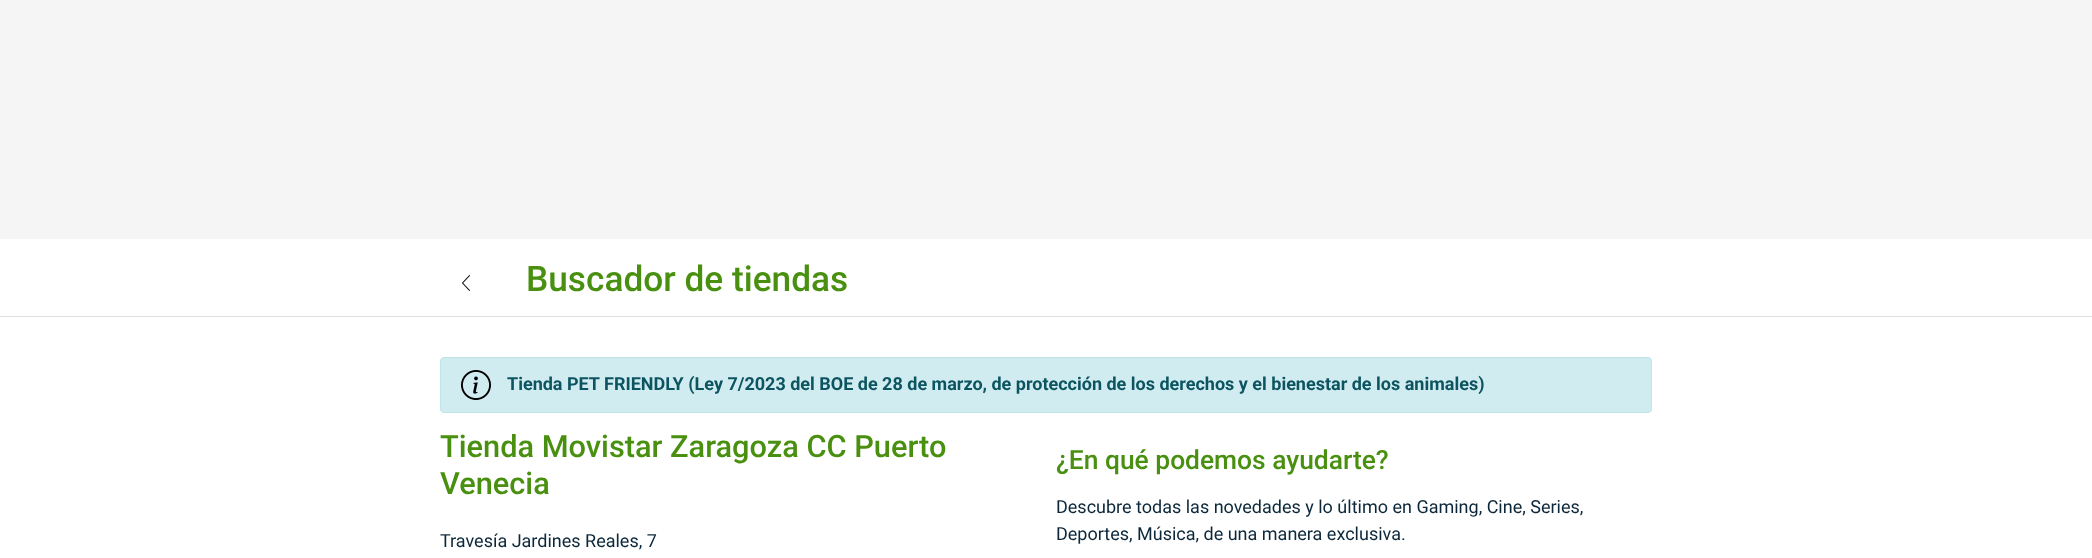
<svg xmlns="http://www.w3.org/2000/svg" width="2092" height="558">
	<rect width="100%" height="100%" fill="#FFFFFF" />
	<rect x="0" y="0" width="2092" height="239" fill="#F5F5F5" />
	<rect x="0" y="316" width="2092" height="1" fill="#DEE2E6" />
	<image x="462" y="275" width="8" height="16" href="assets/img1.png" />
	<text x="526" y="291" font-family="Roboto" font-size="35.25" font-weight="500" fill="#499010">Buscador de tiendas</text>
	<rect x="440.5" y="357.5" width="1211" height="55" rx="3.5" fill="#D1ECF1" stroke="#BEE5EB" />
	<image x="461" y="370" width="30" height="30" href="assets/img2.png" />
	<text x="507" y="390" font-family="Roboto" font-size="18" font-weight="700" fill="#0C5460">Tienda PET FRIENDLY (Ley 7/2023 del BOE de 28 de marzo, de protección de los derechos y el bienestar de los animales)</text>
	<g font-family="Roboto" font-size="30.75" font-weight="500" fill="#499010">
		<text x="440" y="457">Tienda Movistar Zaragoza CC Puerto</text>
		<text x="440" y="494">Venecia</text>
	</g>
	<text x="440" y="547" font-family="Roboto" font-size="18" fill="#0B2739">Travesía Jardines Reales, 7</text>
	<text x="1056" y="469" font-family="Roboto" font-size="26.4" font-weight="500" fill="#499010">¿En qué podemos ayudarte?</text>
	<g font-family="Roboto" font-size="18" fill="#0B2739">
		<text x="1056" y="513">Descubre todas las novedades y lo último en Gaming, Cine, Series,</text>
		<text x="1056" y="540">Deportes, Música, de una manera exclusiva.</text>
	</g>
</svg>
